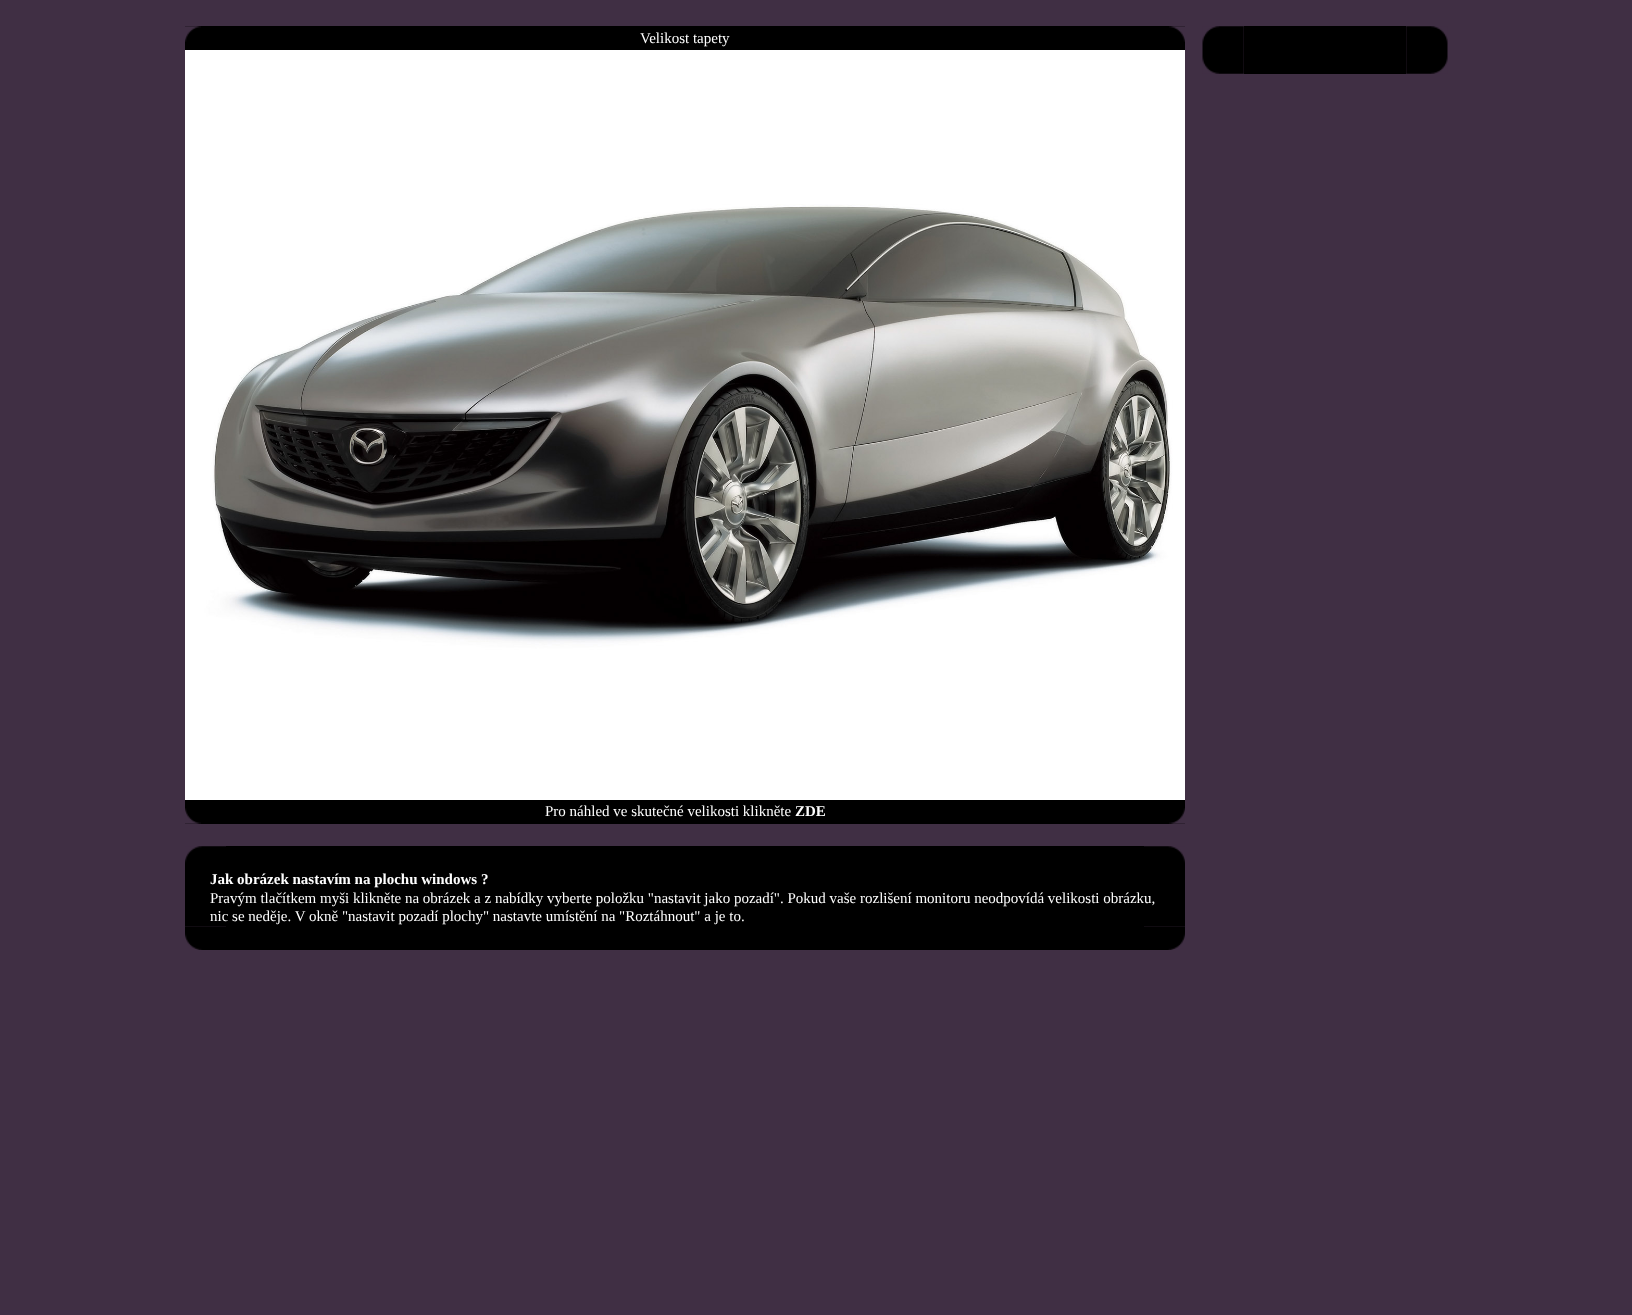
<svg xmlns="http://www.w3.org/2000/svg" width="1632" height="1315">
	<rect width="100%" height="100%" fill="#402F44" />
	<rect x="185" y="26" width="1000" height="798" fill="#000000" />
	<image x="185" y="26" width="16" height="16" href="assets/img1.png" />
	<text x="640" y="43" font-family="Liberation Serif" font-size="15" fill="#FEFEFE">Velikost tapety</text>
	<image x="1169" y="26" width="16" height="16" href="assets/img2.png" />
	<image x="185" y="50" width="1000" height="750" href="assets/img3.png" />
	<image x="185" y="808" width="16" height="16" href="assets/img4.png" />
	<text x="545" y="816" font-family="Liberation Serif" font-size="15" fill="#FEFEFE">Pro náhled ve skutečné velikosti klikněte</text>
	<text x="795" y="816" font-family="Liberation Serif" font-size="15" font-weight="700" fill="#FEFEFE">ZDE</text>
	<image x="1169" y="808" width="16" height="16" href="assets/img5.png" />
	<image x="185" y="846" width="41" height="24" href="assets/img6.png" />
	<rect x="226" y="846" width="918" height="24" fill="#000000" />
	<image x="1144" y="846" width="41" height="24" href="assets/img7.png" />
	<rect x="185" y="870" width="1000" height="56" fill="#000000" />
	<text x="210" y="884" font-family="Liberation Serif" font-size="15" font-weight="700" fill="#FEFEFE">Jak obrázek nastavím na plochu windows ?</text>
	<g font-family="Liberation Serif" font-size="15" fill="#FEFEFE">
		<text x="210" y="903">Pravým tlačítkem myši klikněte na obrázek a z nabídky vyberte položku "nastavit jako pozadí". Pokud vaše rozlišení monitoru neodpovídá velikosti obrázku,</text>
		<text x="210" y="921">nic se neděje. V okně "nastavit pozadí plochy" nastavte umístění na "Roztáhnout" a je to.</text>
	</g>
	<image x="185" y="926" width="41" height="24" href="assets/img8.png" />
	<rect x="226" y="926" width="918" height="24" fill="#000000" />
	<image x="1144" y="926" width="41" height="24" href="assets/img9.png" />
	<image x="1202" y="26" width="42" height="24" href="assets/img10.png" />
	<rect x="1244" y="26" width="162" height="48" fill="#000000" />
	<image x="1406" y="26" width="42" height="24" href="assets/img11.png" />
	<image x="1202" y="50" width="42" height="24" href="assets/img12.png" />
	<image x="1406" y="50" width="42" height="24" href="assets/img13.png" />
</svg>
